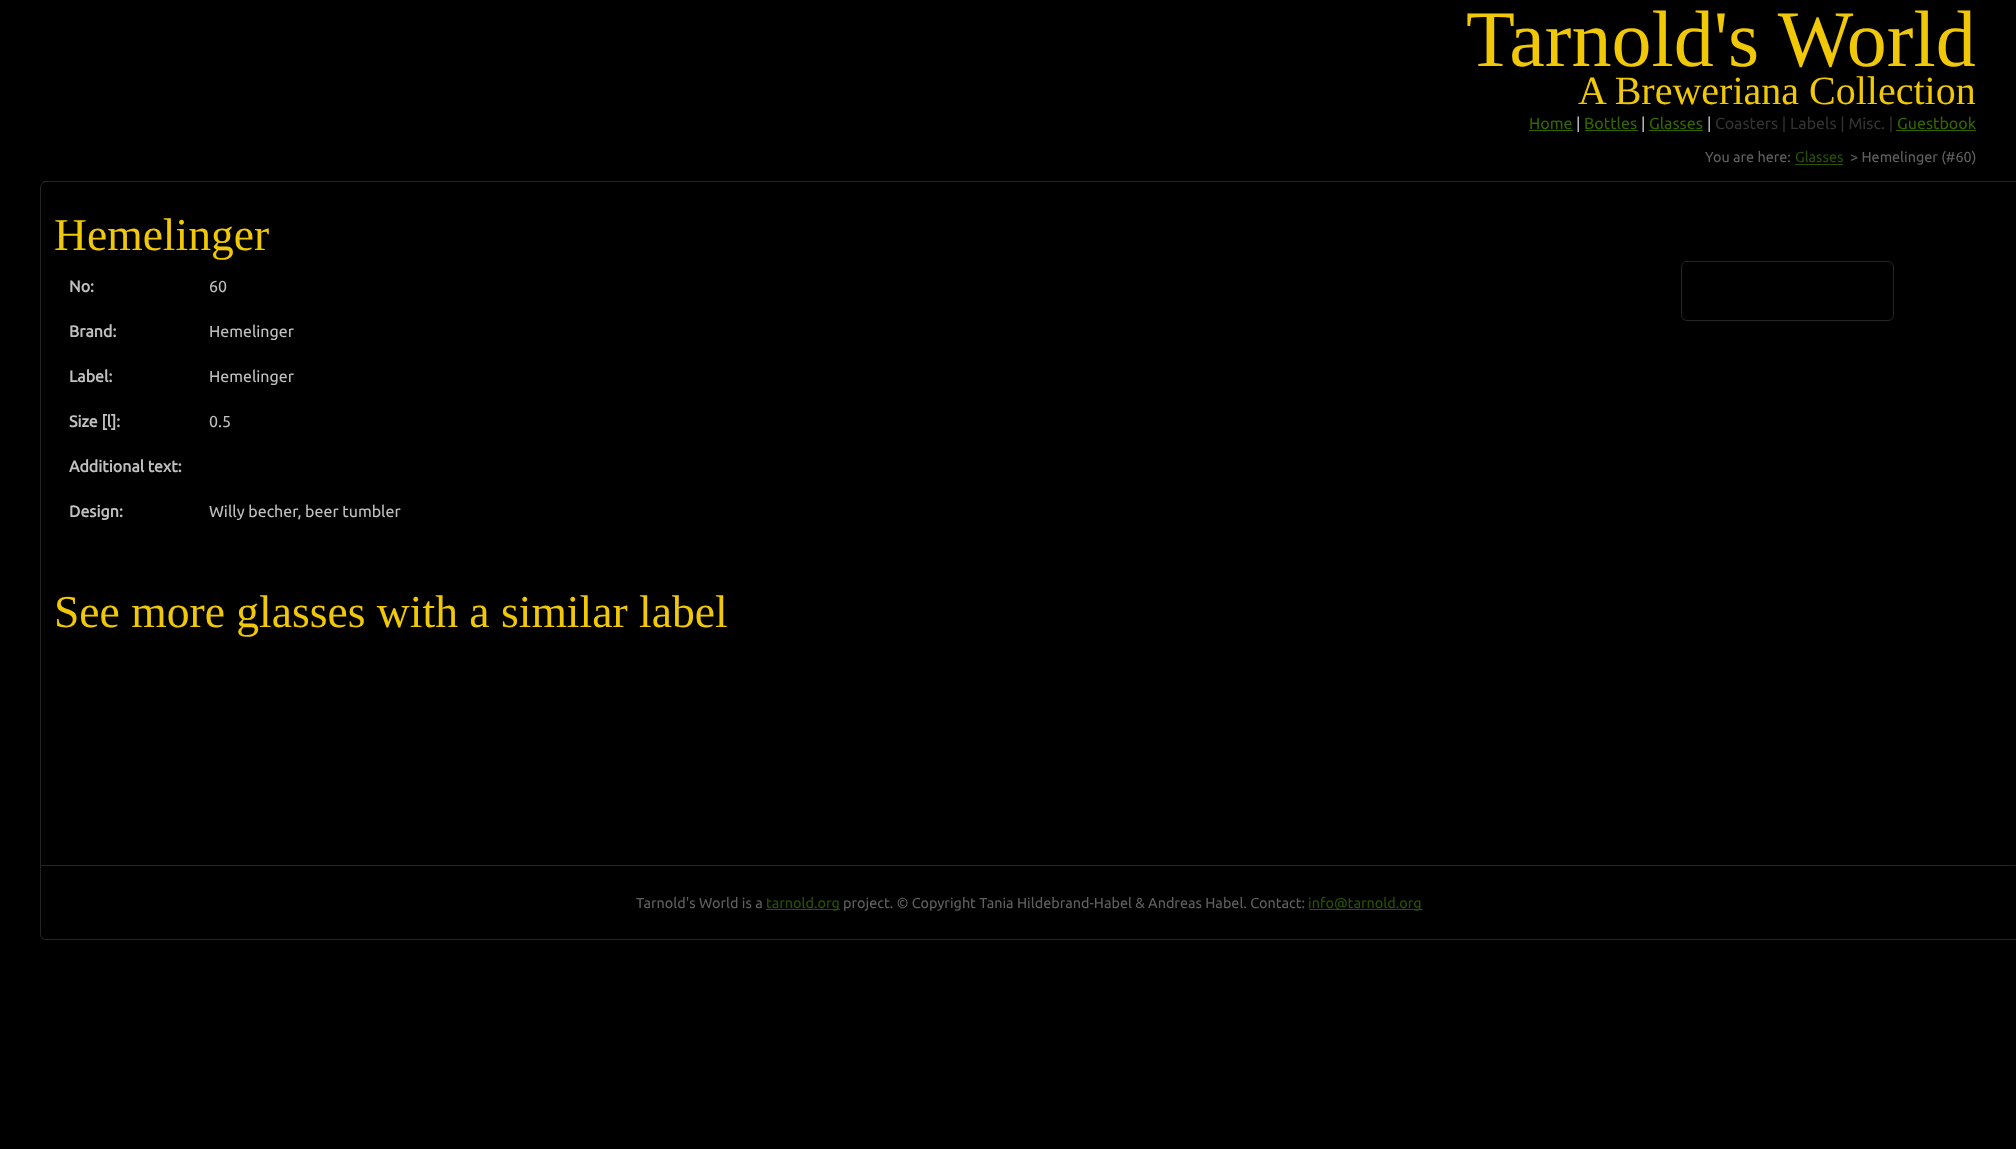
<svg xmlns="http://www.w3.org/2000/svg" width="2016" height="1149">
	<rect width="100%" height="100%" fill="#000000" />
	<text x="1466" y="66" font-family="Liberation Serif" font-size="80" fill="#F0C806">Tarnold's World</text>
	<text x="1578" y="104" font-family="Liberation Serif" font-size="40" fill="#F0C806">A Breweriana Collection</text>
	<text x="1529" y="129" font-family="Ubuntu" font-size="16" fill="#336600">Home</text>
	<rect x="1529" y="130" width="44" height="1" fill="#336600" />
	<text x="1576" y="129" font-family="Ubuntu" font-size="16" fill="#C0C0C0">|</text>
	<text x="1584" y="129" font-family="Ubuntu" font-size="16" fill="#336600">Bottles</text>
	<rect x="1585" y="130" width="53" height="1" fill="#336600" />
	<text x="1641" y="129" font-family="Ubuntu" font-size="16" fill="#C0C0C0">|</text>
	<text x="1649" y="129" font-family="Ubuntu" font-size="16" fill="#336600">Glasses</text>
	<rect x="1649" y="130" width="54" height="1" fill="#336600" />
	<text x="1707" y="129" font-family="Ubuntu" font-size="16" fill="#C0C0C0">|</text>
	<text x="1715" y="129" font-family="Ubuntu" font-size="16" fill="#333333">Coasters | Labels | Misc. |</text>
	<text x="1897" y="129" font-family="Ubuntu" font-size="16" fill="#336600">Guestbook</text>
	<rect x="1896" y="130" width="80" height="1" fill="#336600" />
	<text x="1705" y="162" font-family="Ubuntu" font-size="14.4" fill="#606060">You are here:</text>
	<text x="1795" y="162" font-family="Ubuntu" font-size="14.4" fill="#295300">Glasses</text>
	<rect x="1795" y="164" width="48" height="1" fill="#295300" />
	<text x="1850" y="162" font-family="Ubuntu" font-size="14.4" fill="#606060">&gt; Hemelinger (#60)</text>
	<path d="M46 182C45 182 43 183 42 184V183L44 181H2016L2015 182Z" fill="#252525" />
	<path d="M2016 866L2015 865H41L40 866Z" fill="#252525" />
	<path d="M40 188V866L41 865V187L42 184V183C41 184 40 186 40 188Z" fill="#252525" />
	<text x="54" y="250" font-family="Liberation Serif" font-size="45.6" fill="#F0C806">Hemelinger</text>
	<text x="69" y="292" font-family="Ubuntu" font-size="16" font-weight="700" fill="#C0C0C0">No:</text>
	<text x="209" y="292" font-family="Ubuntu" font-size="16" fill="#C0C0C0">60</text>
	<text x="69" y="337" font-family="Ubuntu" font-size="16" font-weight="700" fill="#C0C0C0">Brand:</text>
	<text x="209" y="337" font-family="Ubuntu" font-size="16" fill="#C0C0C0">Hemelinger</text>
	<text x="69" y="382" font-family="Ubuntu" font-size="16" font-weight="700" fill="#C0C0C0">Label:</text>
	<text x="209" y="382" font-family="Ubuntu" font-size="16" fill="#C0C0C0">Hemelinger</text>
	<text x="69" y="427" font-family="Ubuntu" font-size="16" font-weight="700" fill="#C0C0C0">Size [l]:</text>
	<text x="209" y="427" font-family="Ubuntu" font-size="16" fill="#C0C0C0">0.5</text>
	<g font-family="Ubuntu" font-size="16" font-weight="700" fill="#C0C0C0">
		<text x="69" y="472">Additional text:</text>
		<text x="69" y="517">Design:</text>
	</g>
	<text x="209" y="517" font-family="Ubuntu" font-size="16" fill="#C0C0C0">Willy becher, beer tumbler</text>
	<rect x="1681.5" y="261.5" width="212" height="59" rx="5.5" fill="none" stroke="#252525" />
	<text x="54" y="627" font-family="Liberation Serif" font-size="45.6" fill="#F0C806">See more glasses with a similar label</text>
	<path d="M40 866H2016V940H46C43 940 40 937 40 934ZM41 866H2016V939H46C43 939 41 937 41 934Z" fill="#252525" fill-rule="evenodd" />
	<text x="636" y="908" font-family="Ubuntu" font-size="14.4" fill="#606060">Tarnold's World is a</text>
	<rect x="766" y="909" width="74" height="1" fill="#295300" />
	<text x="766" y="908" font-family="Ubuntu" font-size="14.4" fill="#295300">tarnold.org</text>
	<text x="843" y="908" font-family="Ubuntu" font-size="14.4" fill="#606060">project. © Copyright Tania Hildebrand-Habel &amp; Andreas Habel. Contact:</text>
	<rect x="1309" y="909" width="114" height="1" fill="#295300" />
	<text x="1308" y="908" font-family="Ubuntu" font-size="14.4" fill="#295300">info@tarnold.org</text>
</svg>
